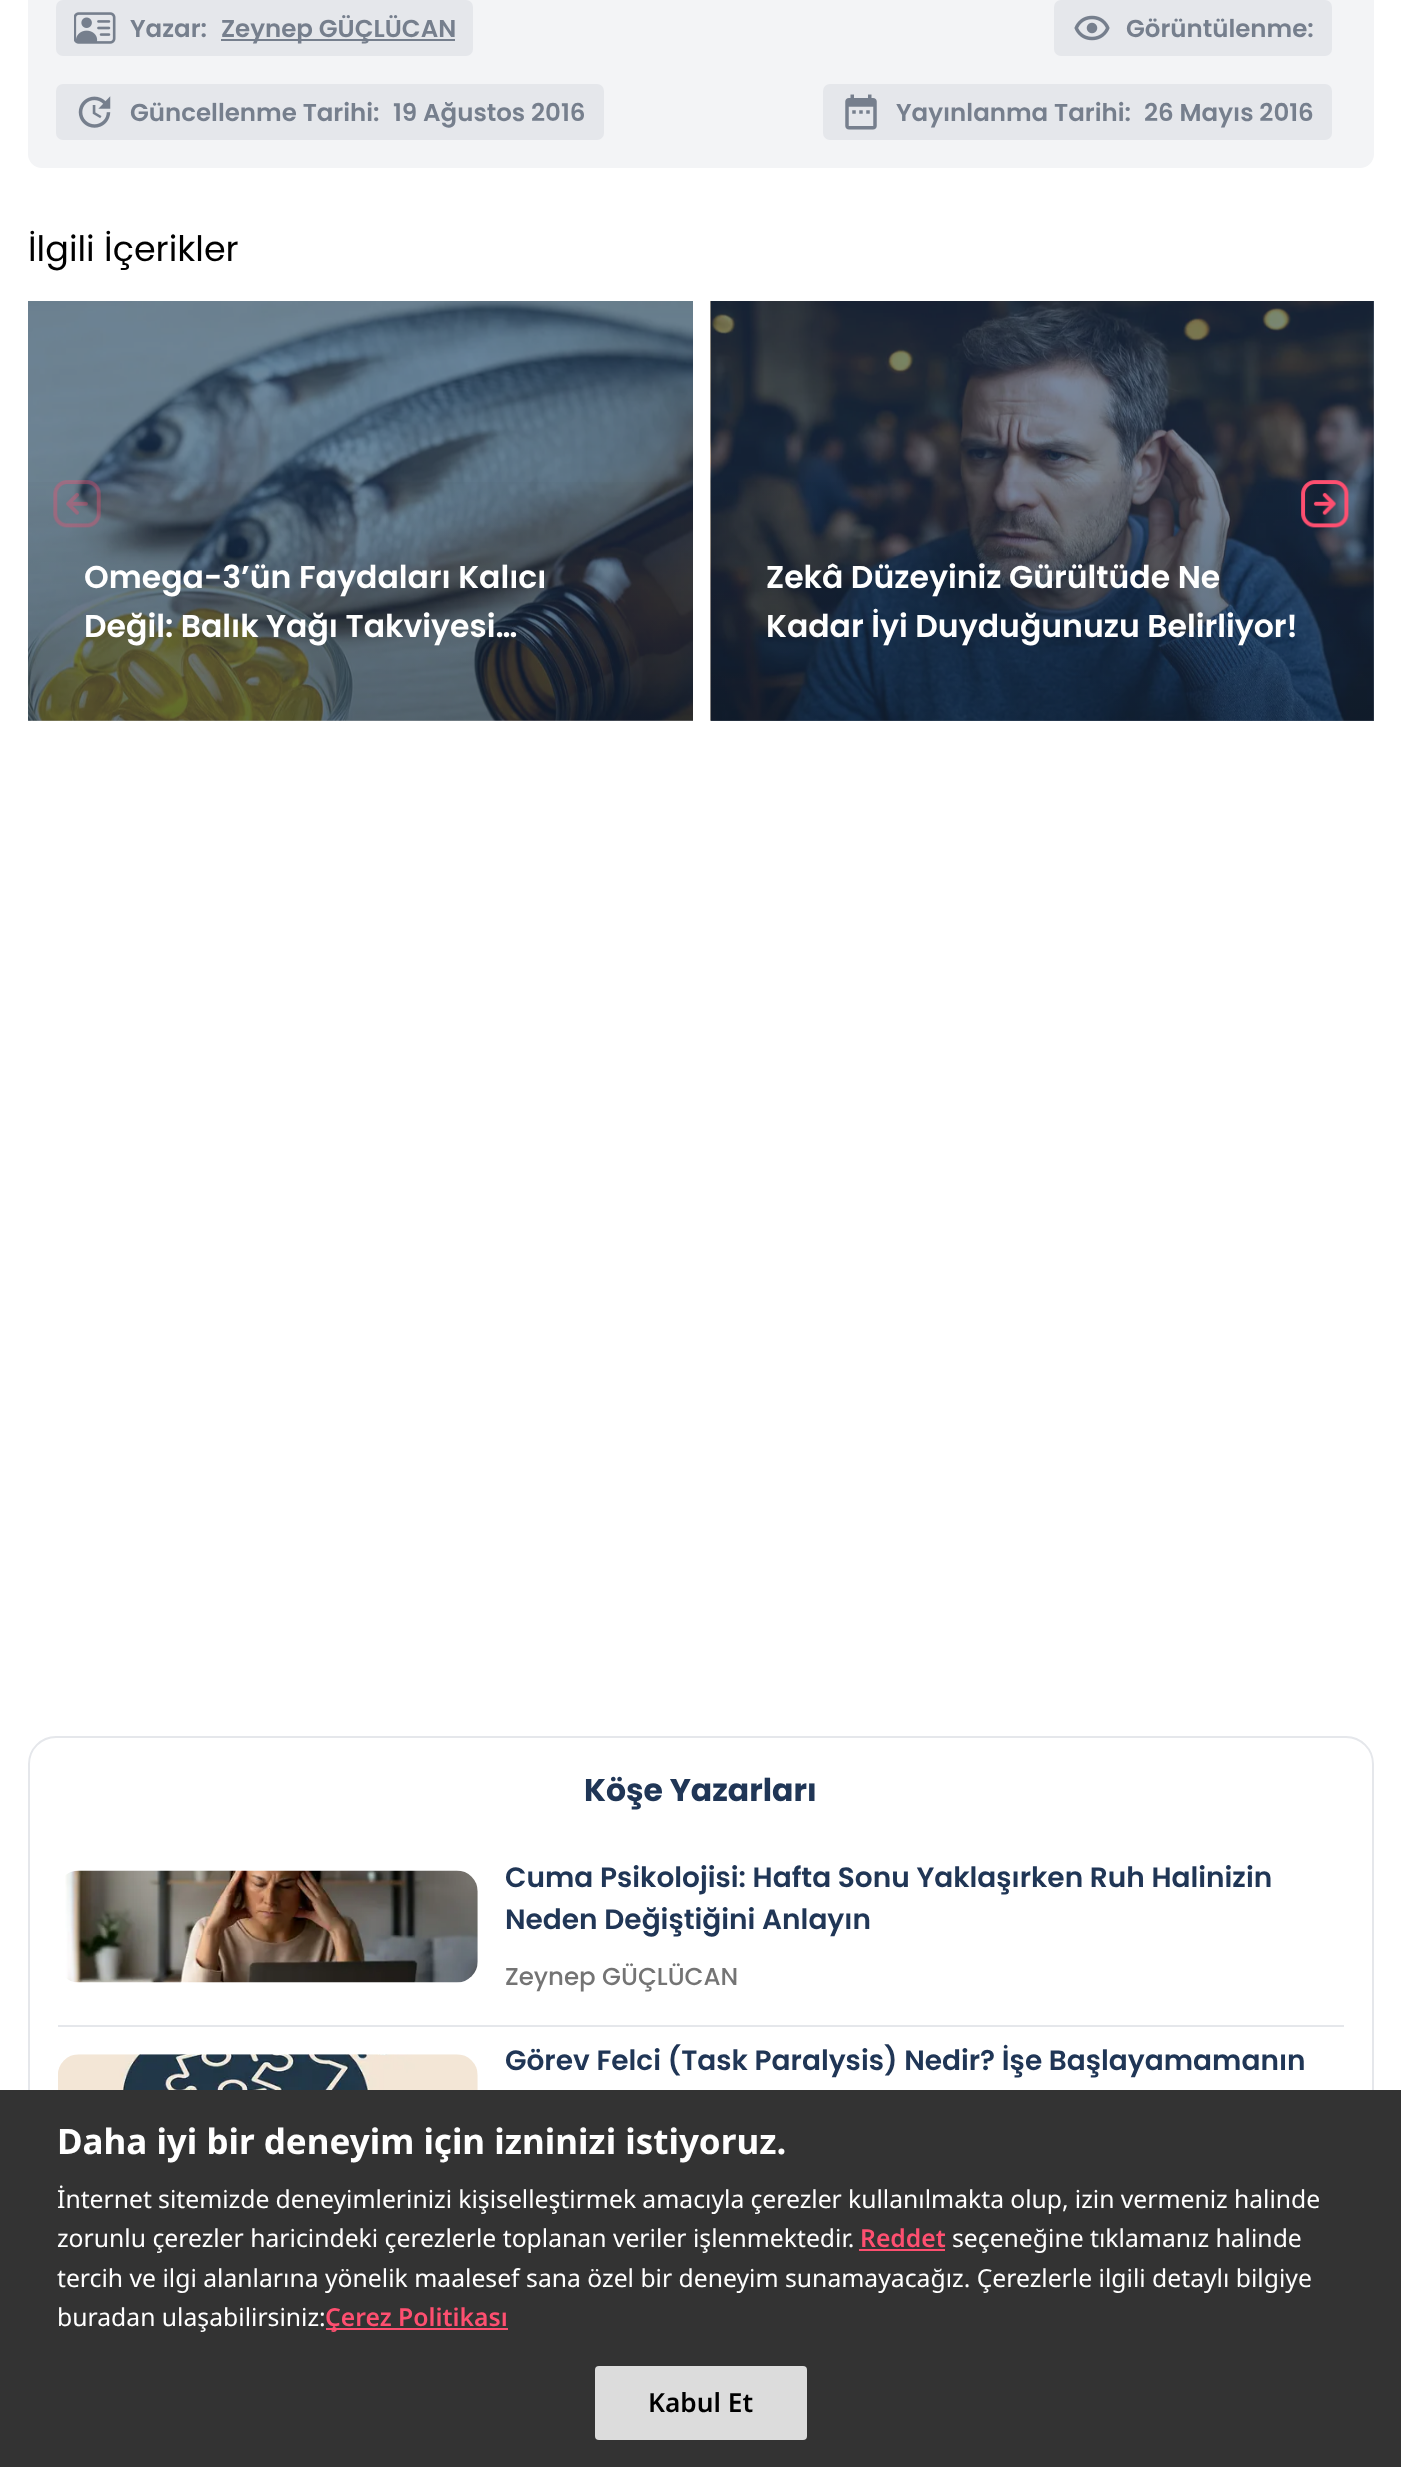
<svg xmlns="http://www.w3.org/2000/svg" width="1401" height="2467">
	<defs>
		<linearGradient id="g1" gradientUnits="userSpaceOnUse" x1="361" y1="453" x2="361" y2="721"><stop offset="0" stop-color="#000000" stop-opacity="0" /><stop offset="1" stop-color="#000000" stop-opacity="0.2" /></linearGradient>
		<linearGradient id="g2" gradientUnits="userSpaceOnUse" x1="1042" y1="453" x2="1042" y2="721"><stop offset="0" stop-color="#000000" stop-opacity="0" /><stop offset="1" stop-color="#000000" stop-opacity="0.2" /></linearGradient>
	</defs>
	<rect width="100%" height="100%" fill="#FFFFFF" />
	<rect x="711" y="301" width="663" height="420" fill="#79869A" />
	<rect x="28" y="-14" width="1346" height="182" rx="14" fill="#F3F4F6" />
	<rect x="56" y="0" width="417" height="56" rx="7" fill="#E5E7EB" />
	<image x="74" y="12" width="42" height="32" href="assets/img1.png" />
	<text x="130" y="37" font-family="Poppins" font-size="24.5" font-weight="600" fill="#767F8D">Yazar:</text>
	<rect x="221" y="39" width="234" height="2" fill="#767F8D" />
	<text x="221" y="37" font-family="Poppins" font-size="24.5" font-weight="600" fill="#767F8D">Zeynep GÜÇLÜCAN</text>
	<rect x="1054" y="0" width="278" height="56" rx="7" fill="#E5E7EB" />
	<image x="1074" y="15" width="36" height="26" href="assets/img2.png" />
	<text x="1126" y="37" font-family="Poppins" font-size="24.5" font-weight="600" fill="#767F8D">Görüntülenme:</text>
	<rect x="56" y="84" width="548" height="56" rx="7" fill="#E5E7EB" />
	<image x="78" y="96" width="33" height="32" href="assets/img3.png" />
	<g font-family="Poppins" font-size="24.5" font-weight="600" fill="#767F8D">
		<text x="130" y="121">Güncellenme Tarihi:</text>
		<text x="393" y="121">19 Ağustos 2016</text>
	</g>
	<rect x="823" y="84" width="509" height="56" rx="7" fill="#E5E7EB" />
	<image x="845" y="94" width="32" height="36" href="assets/img4.png" />
	<g font-family="Poppins" font-size="24.5" font-weight="600" fill="#767F8D">
		<text x="896" y="121">Yayınlanma Tarihi:</text>
		<text x="1144" y="121">26 Mayıs 2016</text>
	</g>
	<text x="28" y="261" font-family="Poppins" font-size="35" fill="#000000">İlgili İçerikler</text>
	<image x="28" y="301" width="665" height="420" href="assets/img7.png" />
	<rect x="28" y="482" width="665" height="239" fill="url(#g1)" />
	<image x="53" y="480" width="48" height="48" href="assets/img5.png" />
	<image x="710" y="301" width="664" height="420" href="assets/img8.png" />
	<rect x="711" y="482" width="663" height="239" fill="url(#g2)" />
	<image x="1301" y="480" width="48" height="48" href="assets/img6.png" />
	<g font-family="Poppins" font-size="31.5" font-weight="600" fill="#FFFFFF">
		<text x="84" y="588">Omega-3’ün Faydaları Kalıcı</text>
		<text x="84" y="637">Değil: Balık Yağı Takviyesi…</text>
		<text x="766" y="588">Zekâ Düzeyiniz Gürültüde Ne</text>
		<text x="766" y="637">Kadar İyi Duyduğunuzu Belirliyor!</text>
	</g>
	<rect x="29" y="1737" width="1344" height="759" rx="27" fill="none" stroke="#E5E7EB" stroke-width="2" />
	<text x="584" y="1801" font-family="Poppins" font-size="31.5" font-weight="700" fill="#203656">Köşe Yazarları</text>
	<rect x="58" y="2025" width="1286" height="2" fill="#E5E7EB" />
	<image x="65" y="1870" width="413" height="113" href="assets/img9.png" />
	<g font-family="Poppins" font-size="28" font-weight="600" fill="#203656">
		<text x="505" y="1887">Cuma Psikolojisi: Hafta Sonu Yaklaşırken Ruh Halinizin</text>
		<text x="505" y="1929">Neden Değiştiğini Anlayın</text>
	</g>
	<text x="505" y="1985" font-family="Poppins" font-size="24.5" font-weight="500" fill="#747474">Zeynep GÜÇLÜCAN</text>
	<image x="58" y="2054" width="420" height="36" href="assets/img10.png" />
	<text x="505" y="2070" font-family="Poppins" font-size="28" font-weight="600" fill="#203656">Görev Felci (Task Paralysis) Nedir? İşe Başlayamamanın</text>
	<rect x="0" y="2090" width="1401" height="377" fill="#333333" />
	<text x="57" y="2154" font-family="Noto Sans" font-size="35" font-weight="700" fill="#FFFFFF">Daha iyi bir deneyim için izninizi istiyoruz.</text>
	<g font-family="Noto Sans" font-size="24.72" fill="#FFFFFF">
		<text x="57" y="2208" word-spacing="-0.25">İnternet sitemizde deneyimlerinizi kişiselleştirmek amacıyla çerezler kullanılmakta olup, izin vermeniz halinde</text>
		<text x="57" y="2247">zorunlu çerezler haricindeki çerezlerle toplanan veriler işlenmektedir.</text>
	</g>
	<text x="860" y="2247" font-family="Noto Sans" font-size="24.72" font-weight="600" fill="#FE4F70">Reddet</text>
	<rect x="859" y="2249" width="86" height="2" fill="#FE4F70" />
	<g font-family="Noto Sans" font-size="24.72" fill="#FFFFFF">
		<text x="952" y="2247">seçeneğine tıklamanız halinde</text>
		<text x="57" y="2287">tercih ve ilgi alanlarına yönelik maalesef sana özel bir deneyim sunamayacağız. Çerezlerle ilgili detaylı bilgiye</text>
		<text x="57" y="2326">buradan ulaşabilirsiniz:</text>
	</g>
	<rect x="326" y="2328" width="182" height="2" fill="#FE4F70" />
	<text x="325" y="2326" font-family="Noto Sans" font-size="24.72" font-weight="600" fill="#FE4F70">Çerez Politikası</text>
	<rect x="595" y="2366" width="212" height="74" rx="4" fill="#DCDCDC" />
	<text x="648" y="2412" font-family="Noto Sans" font-size="26.25" font-weight="600" fill="#000000">Kabul Et</text>
</svg>
